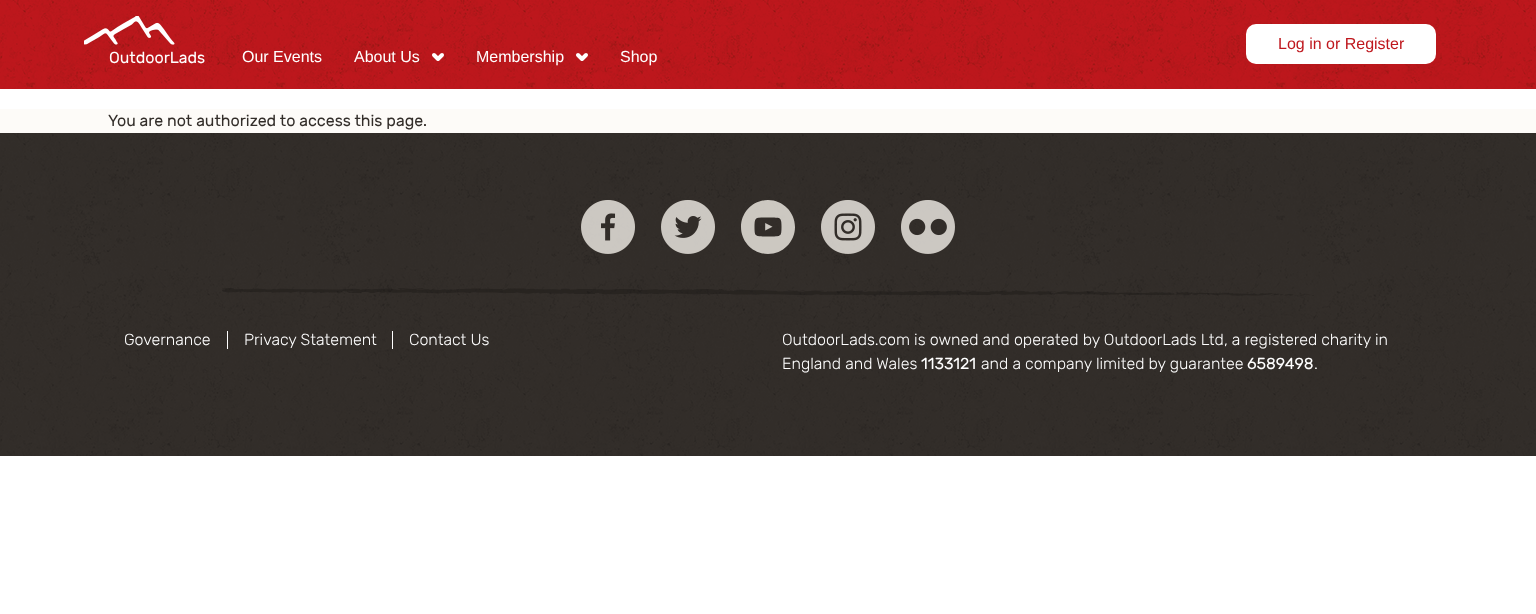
<svg xmlns="http://www.w3.org/2000/svg" width="1536" height="614">
	<rect width="100%" height="100%" fill="#FFFFFF" />
	<image x="0" y="0" width="1536" height="89" href="assets/img1.png" />
	<image x="1246" y="0" width="222" height="80" href="assets/img2.png" />
	<rect x="1246" y="24" width="190" height="40" rx="10" fill="#FFFFFF" />
	<text x="1278" y="49" font-family="Liberation Sans" font-size="16" fill="#BF171D">Log in or Register</text>
	<image x="84" y="16" width="91" height="29" href="assets/img3.png" />
	<text x="109" y="63" font-family="Rubik" font-size="16" fill="#FFFFFF">OutdoorLads</text>
	<text x="242" y="62" font-family="Liberation Sans" font-size="16" fill="#FFFFFF">Our Events</text>
	<path d="M434 55L438 59L442 55" fill="none" stroke="#FFFFFF" stroke-width="4" stroke-linecap="round" stroke-linejoin="round" />
	<text x="354" y="62" font-family="Liberation Sans" font-size="16" fill="#FFFFFF">About Us</text>
	<path d="M578 55L582 59L586 55" fill="none" stroke="#FFFFFF" stroke-width="4" stroke-linecap="round" stroke-linejoin="round" />
	<g font-family="Liberation Sans" font-size="16" fill="#FFFFFF">
		<text x="476" y="62">Membership</text>
		<text x="620" y="62">Shop</text>
	</g>
	<rect x="0" y="109" width="1536" height="24" fill="#FDFBF8" />
	<text x="108" y="126" font-family="Rubik" font-size="16" fill="#332E2A">You are not authorized to access this page.</text>
	<image x="0" y="133" width="1536" height="323" href="assets/img4.png" />
	<image x="222" y="288" width="1092" height="8" href="assets/img5.png" />
	<image x="581" y="200" width="54" height="54" href="assets/img6.png" />
	<image x="661" y="200" width="54" height="54" href="assets/img7.png" />
	<image x="741" y="200" width="54" height="54" href="assets/img8.png" />
	<image x="821" y="200" width="54" height="54" href="assets/img9.png" />
	<image x="901" y="200" width="54" height="54" href="assets/img10.png" />
	<text x="124" y="345" font-family="Rubik" font-size="16" font-weight="300" fill="#FFFFFF">Governance</text>
	<rect x="227" y="331" width="1" height="18" fill="#FFFFFF" />
	<text x="244" y="345" font-family="Rubik" font-size="16" font-weight="300" fill="#FFFFFF">Privacy Statement</text>
	<rect x="392" y="331" width="1" height="18" fill="#FFFFFF" />
	<g font-family="Rubik" font-size="16" font-weight="300" fill="#FFFFFF">
		<text x="409" y="345">Contact Us</text>
		<text x="782" y="345">OutdoorLads.com is owned and operated by OutdoorLads Ltd, a registered charity in</text>
		<text x="782" y="369">England and Wales</text>
	</g>
	<text x="921" y="369" font-family="Rubik" font-size="16" fill="#FFFFFF">1133121</text>
	<text x="981" y="369" font-family="Rubik" font-size="16" font-weight="300" fill="#FFFFFF">and a company limited by guarantee</text>
	<text x="1247" y="369" font-family="Rubik" font-size="16" fill="#FFFFFF">6589498</text>
	<text x="1314" y="369" font-family="Rubik" font-size="16" font-weight="300" fill="#FFFFFF">.</text>
</svg>
